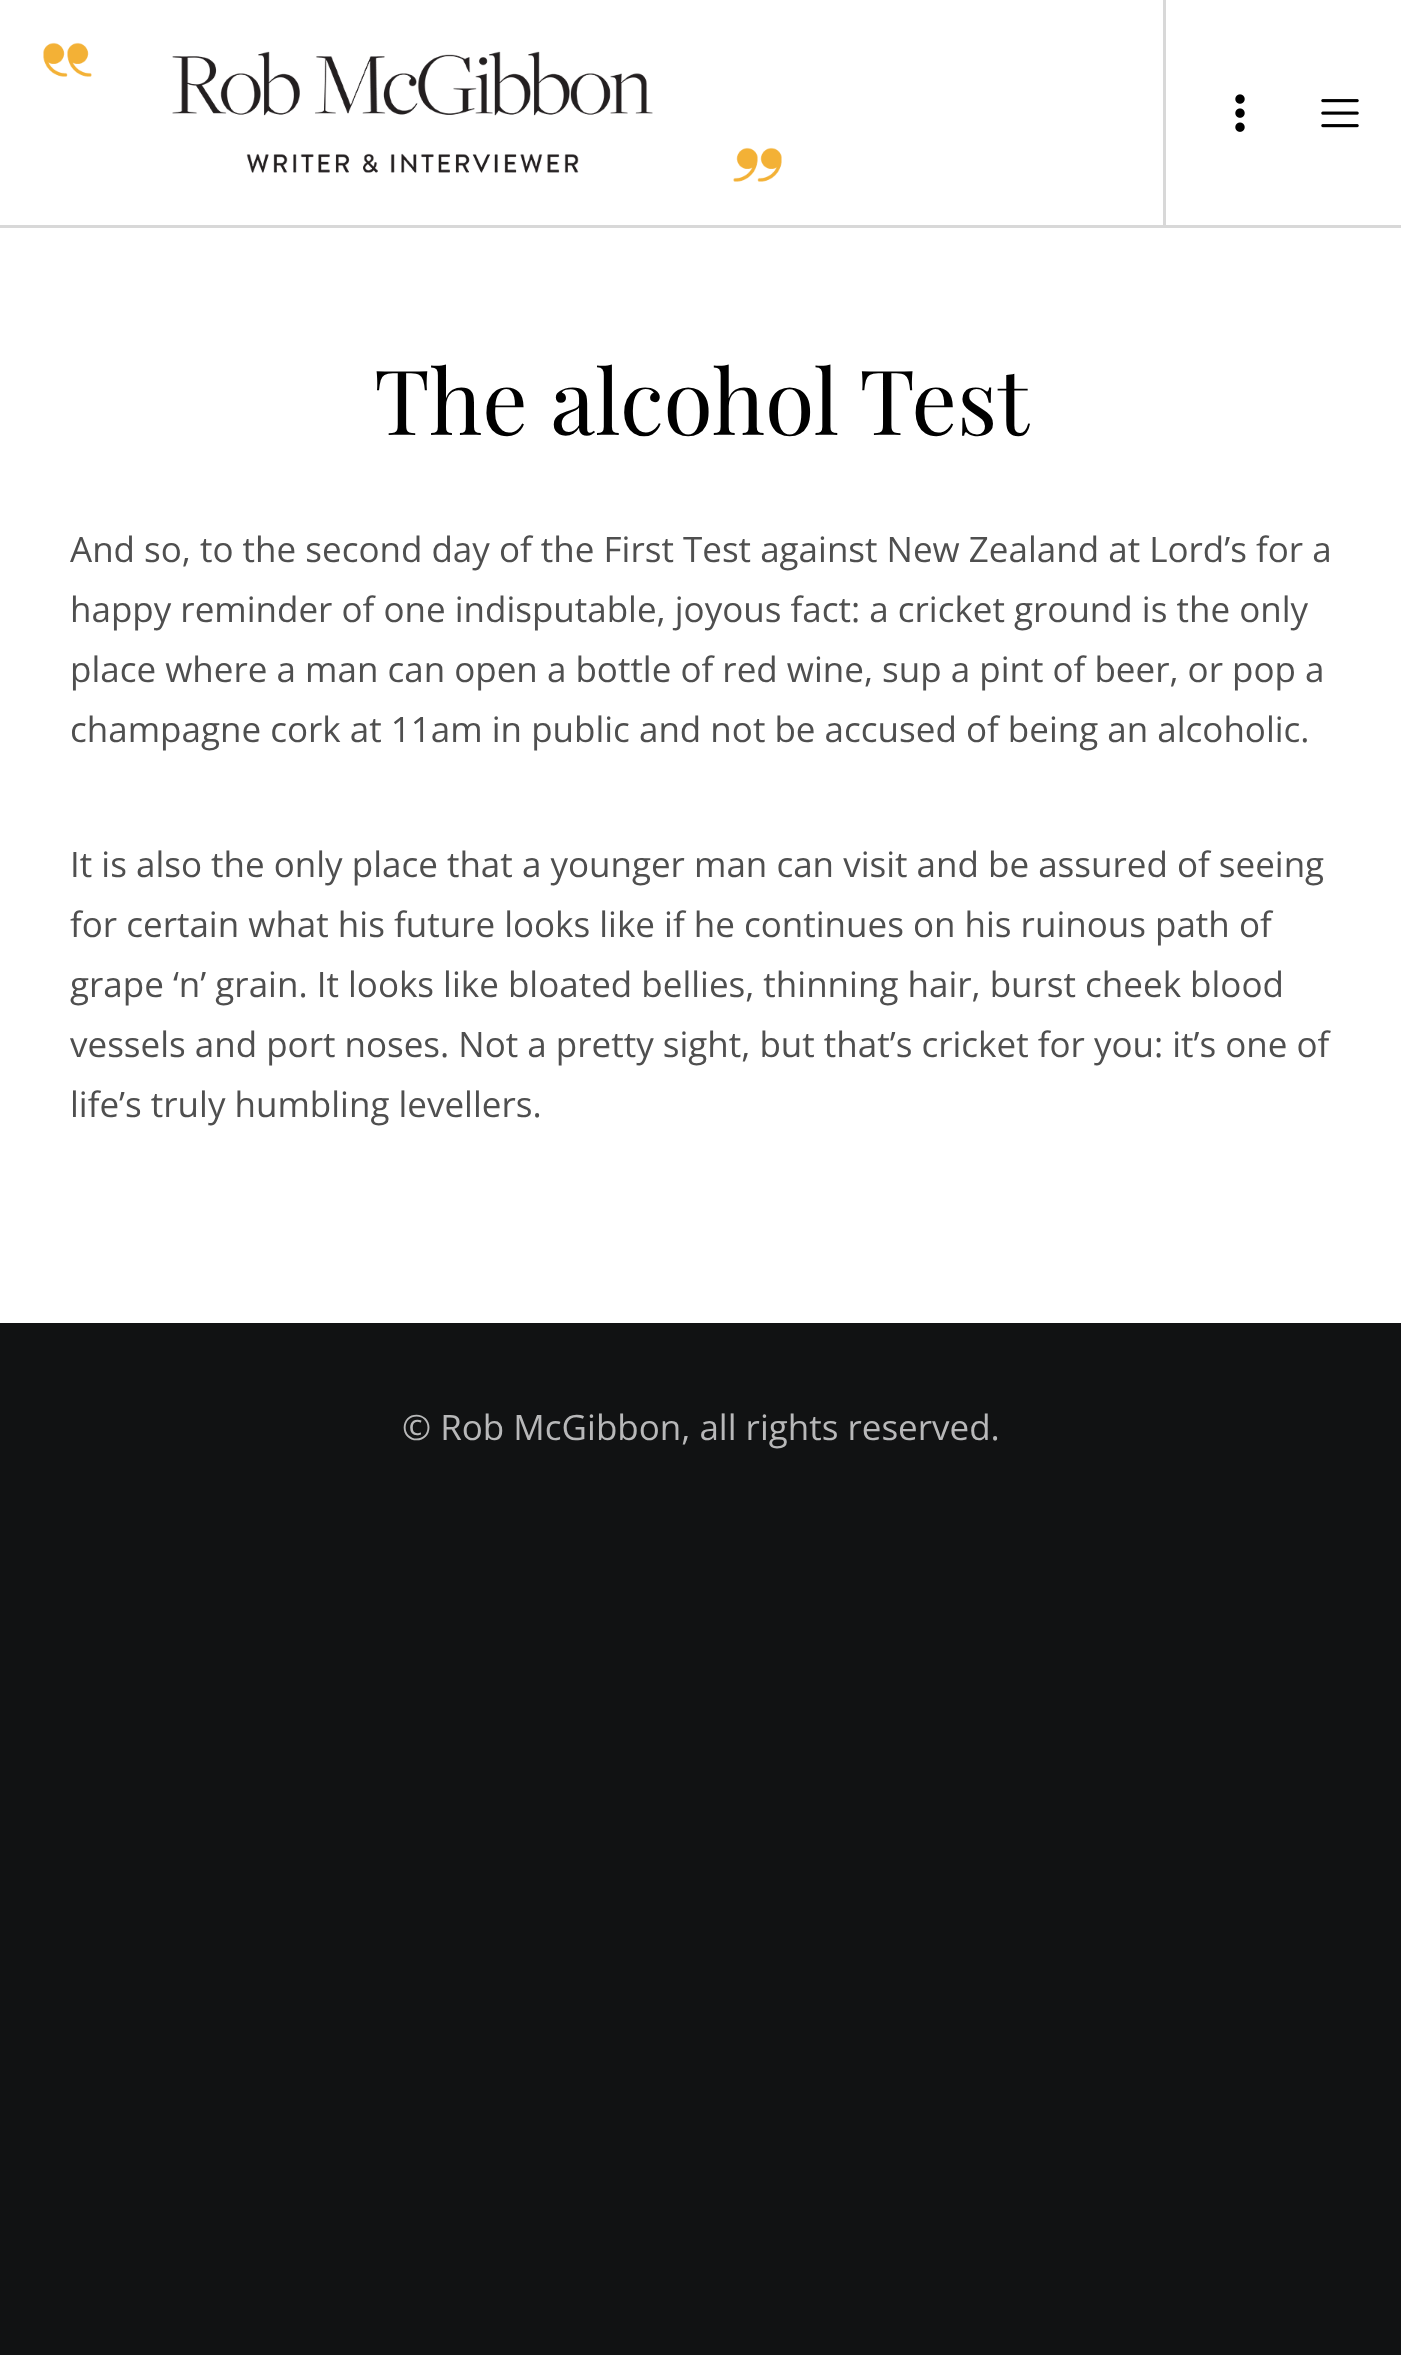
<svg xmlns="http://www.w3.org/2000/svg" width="1401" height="2355">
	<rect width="100%" height="100%" fill="#111213" />
	<rect x="0" y="0" width="1401" height="225" fill="#FFFFFF" />
	<rect x="0" y="225" width="1401" height="3" fill="#D8D8D8" />
	<image x="43" y="42" width="739" height="140" href="assets/img1.png" />
	<rect x="1163" y="0" width="3" height="225" fill="#D8D8D8" />
	<image x="1235" y="94" width="10" height="38" href="assets/img2.png" />
	<image x="1321" y="99" width="38" height="29" href="assets/img3.png" />
	<rect x="0" y="228" width="1401" height="1095" fill="#FFFFFF" />
	<text x="374" y="435" font-family="Playfair Display" font-size="90" fill="#000000">The alcohol Test</text>
	<g font-family="Open Sans" font-size="35" fill="#4F4F4F">
		<text x="70" y="562">And so, to the second day of the First Test against New Zealand at Lord’s for a</text>
		<text x="70" y="622">happy reminder of one indisputable, joyous fact: a cricket ground is the only</text>
		<text x="70" y="682">place where a man can open a bottle of red wine, sup a pint of beer, or pop a</text>
		<text x="70" y="742">champagne cork at 11am in public and not be accused of being an alcoholic.</text>
		<text x="70" y="877">It is also the only place that a younger man can visit and be assured of seeing</text>
		<text x="70" y="937">for certain what his future looks like if he continues on his ruinous path of</text>
		<text x="70" y="997">grape ‘n’ grain. It looks like bloated bellies, thinning hair, burst cheek blood</text>
		<text x="70" y="1057">vessels and port noses. Not a pretty sight, but that’s cricket for you: it’s one of</text>
		<text x="70" y="1117">life’s truly humbling levellers.</text>
	</g>
	<text x="402" y="1440" font-family="Open Sans" font-size="35" fill="#B8B8B9">© Rob McGibbon, all rights reserved.</text>
</svg>
